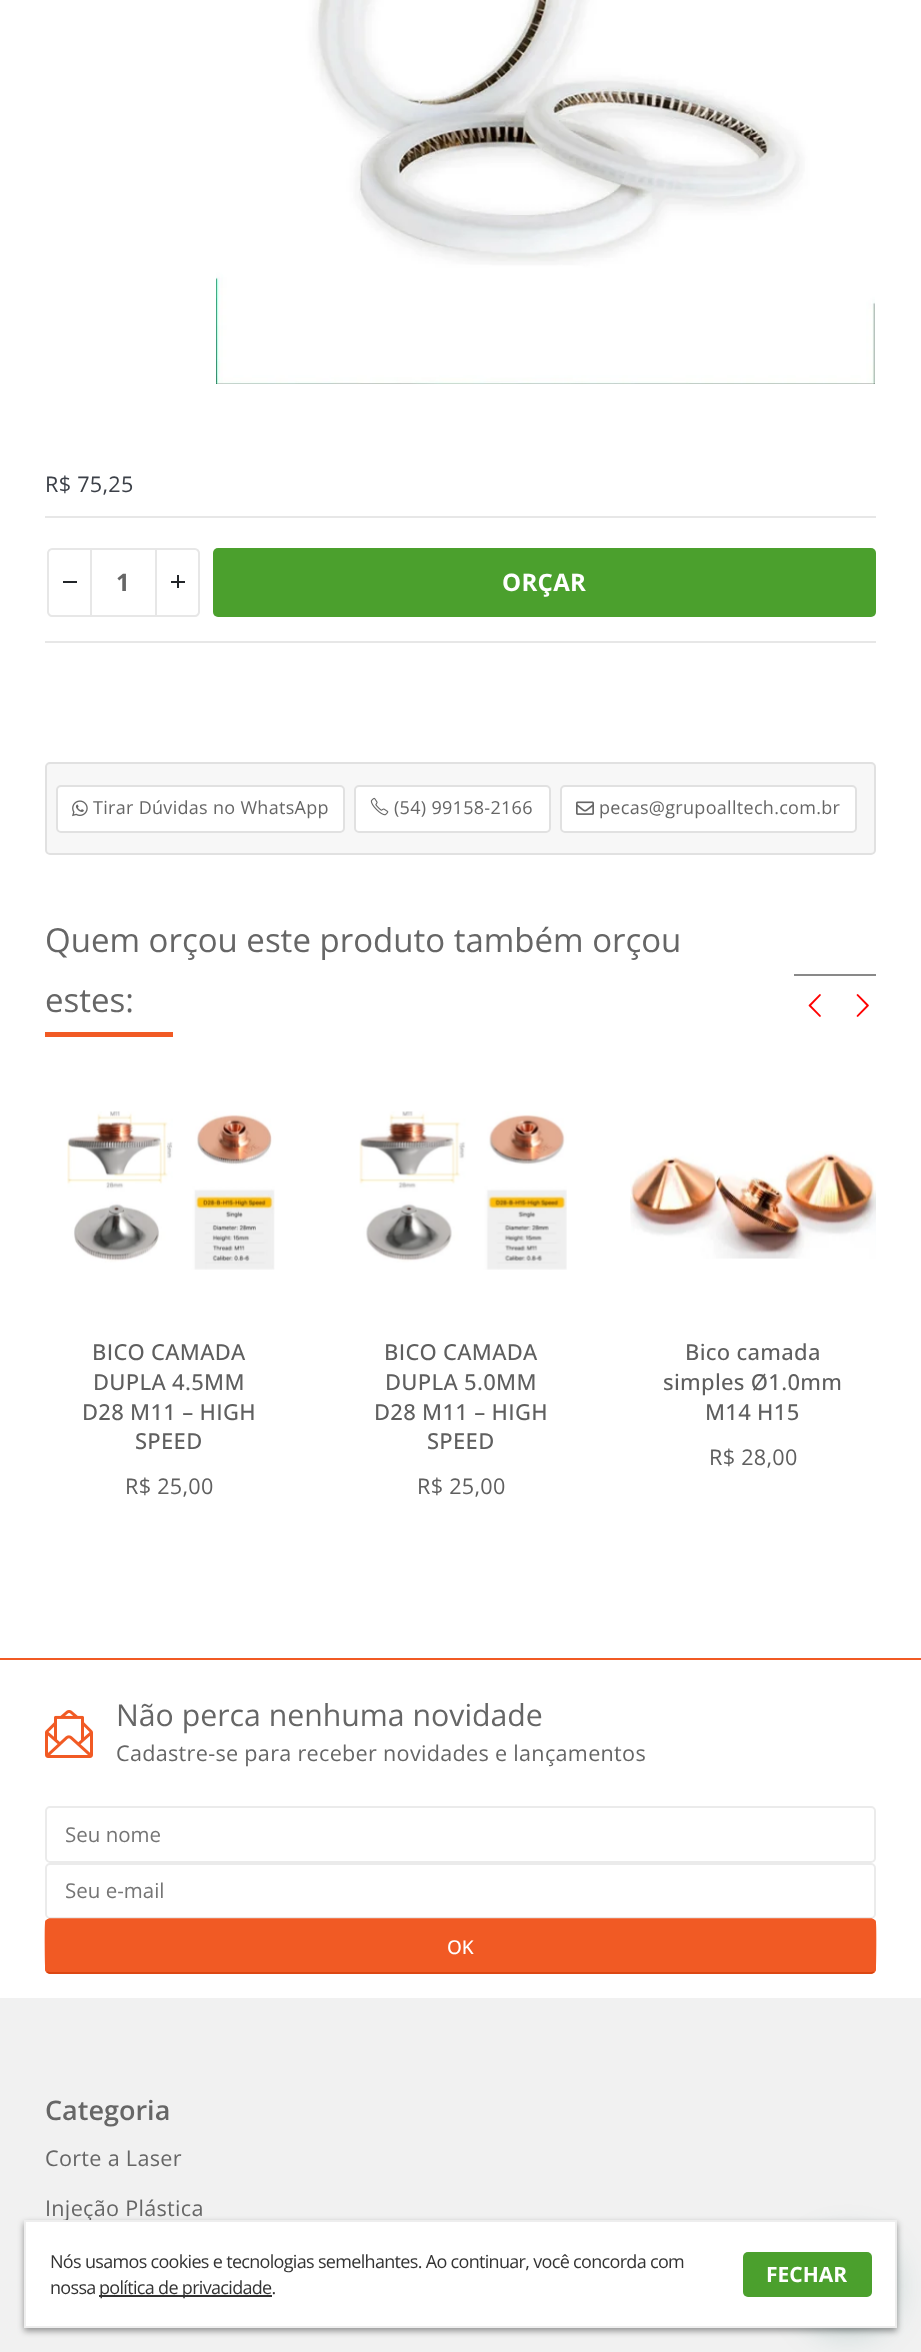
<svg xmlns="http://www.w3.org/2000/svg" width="921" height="2352">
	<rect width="100%" height="100%" fill="#FFFFFF" />
	<image x="216" y="0" width="659" height="384" href="assets/img1.png" />
	<text x="45" y="492" font-family="Open Sans" font-size="21.6" letter-spacing="0.3" fill="#3C4048">R$ 75,25</text>
	<rect x="45" y="516" width="831" height="2" fill="#E7E7E7" />
	<rect x="45" y="641" width="831" height="2" fill="#E7E7E7" />
	<rect x="90" y="548" width="66" height="2" fill="#E7E7E7" />
	<rect x="90" y="615" width="66" height="2" fill="#E7E7E7" />
	<path d="M52 549H91V616H52C50 616 48 614 48 612V553C48 551 50 549 52 549Z" fill="none" stroke="#E7E7E7" stroke-width="2" />
	<rect x="63" y="581" width="14" height="2" fill="#222529" />
	<text x="116" y="591" font-family="Open Sans" font-size="24" font-weight="700" fill="#666666">1</text>
	<path d="M156 549H195C197 549 199 551 199 553V612C199 614 197 616 195 616H156Z" fill="none" stroke="#E7E7E7" stroke-width="2" />
	<rect x="171" y="581" width="14" height="2" fill="#222529" />
	<rect x="177" y="575" width="2" height="13" fill="#222529" />
	<rect x="213" y="548" width="663" height="69" rx="5" fill="#4BA02D" />
	<text x="502" y="591" font-family="Open Sans" font-size="24" font-weight="700" letter-spacing="0.3" fill="#FFFFFF">ORÇAR</text>
	<rect x="46" y="763" width="829" height="91" rx="4" fill="#F7F7F7" stroke="#E1E1E1" stroke-width="2" />
	<rect x="57" y="786" width="287" height="46" rx="4" fill="#FFFFFF" stroke="#E1E1E1" stroke-width="2" />
	<image x="72" y="800" width="16" height="17" href="assets/img2.png" />
	<text x="93" y="814" font-family="Open Sans" font-size="18" letter-spacing="0.3" fill="#666666">Tirar Dúvidas no WhatsApp</text>
	<rect x="355" y="786" width="195" height="46" rx="4" fill="#FFFFFF" stroke="#E1E1E1" stroke-width="2" />
	<image x="370" y="797" width="19" height="19" href="assets/img3.png" />
	<text x="394" y="814" font-family="Open Sans" font-size="18" letter-spacing="0.3" fill="#666666">(54) 99158-2166</text>
	<rect x="561" y="786" width="295" height="46" rx="4" fill="#FFFFFF" stroke="#E1E1E1" stroke-width="2" />
	<image x="576" y="801" width="18" height="14" href="assets/img4.png" />
	<text x="599" y="814" font-family="Open Sans" font-size="18" letter-spacing="0.3" fill="#666666">pecas@grupoalltech.com.br</text>
	<g font-family="Open Sans" font-size="33" fill="#666666">
		<text x="45" y="952">Quem orçou este produto também orçou</text>
		<text x="45" y="1012">estes:</text>
	</g>
	<rect x="45" y="1032" width="128" height="5" fill="#F15A24" />
	<rect x="794" y="974" width="82" height="2" fill="#898989" />
	<image x="808" y="994" width="13" height="23" href="assets/img5.png" />
	<image x="856" y="994" width="13" height="23" href="assets/img6.png" />
	<image x="67" y="1111" width="208" height="159" href="assets/img7.png" />
	<g font-family="Open Sans" font-size="22" font-weight="500" letter-spacing="0.3" fill="#5F5F5F">
		<text x="92" y="1360">BICO CAMADA</text>
		<text x="93" y="1390">DUPLA 4.5MM</text>
		<text x="82" y="1420">D28 M11 – HIGH</text>
		<text x="135" y="1449">SPEED</text>
	</g>
	<text x="125" y="1494" font-family="Open Sans" font-size="21.6" letter-spacing="0.3" fill="#5F5F5F">R$ 25,00</text>
	<image x="359" y="1111" width="208" height="159" href="assets/img8.png" />
	<g font-family="Open Sans" font-size="22" font-weight="500" letter-spacing="0.3" fill="#5F5F5F">
		<text x="384" y="1360">BICO CAMADA</text>
		<text x="385" y="1390">DUPLA 5.0MM</text>
		<text x="374" y="1420">D28 M11 – HIGH</text>
		<text x="427" y="1449">SPEED</text>
	</g>
	<text x="417" y="1494" font-family="Open Sans" font-size="21.6" letter-spacing="0.3" fill="#5F5F5F">R$ 25,00</text>
	<image x="630" y="1151" width="246" height="108" href="assets/img9.png" />
	<g font-family="Open Sans" font-size="22" font-weight="500" letter-spacing="0.3" fill="#5F5F5F">
		<text x="685" y="1360">Bico camada</text>
		<text x="663" y="1390">simples Ø1.0mm</text>
		<text x="705" y="1420">M14 H15</text>
	</g>
	<text x="709" y="1465" font-family="Open Sans" font-size="21.6" letter-spacing="0.3" fill="#5F5F5F">R$ 28,00</text>
	<rect x="0" y="1658" width="921" height="2" fill="#F15A24" />
	<image x="45" y="1710" width="48" height="48" href="assets/img10.png" />
	<text x="116" y="1726" font-family="Open Sans" font-size="30.25" fill="#666666">Não perca nenhuma novidade</text>
	<text x="116" y="1761" font-family="Open Sans" font-size="21.6" letter-spacing="0.3" fill="#666666">Cadastre-se para receber novidades e lançamentos</text>
	<rect x="46" y="1807" width="829" height="55" rx="4" fill="none" stroke="#EBEBEB" stroke-width="2" />
	<text x="65" y="1842" font-family="Open Sans" font-size="20.5" fill="#757575">Seu nome</text>
	<rect x="46" y="1864" width="829" height="54" rx="4" fill="none" stroke="#EBEBEB" stroke-width="2" />
	<text x="65" y="1898" font-family="Open Sans" font-size="20.5" fill="#757575">Seu e-mail</text>
	<rect x="45" y="1919" width="831" height="55" rx="5" fill="#F15A24" />
	<path d="M874 1972L871.5 1973H49.5L47 1972" fill="none" stroke="#D5420E" stroke-width="1.5" />
	<path d="M47 1972L46 1970C45.5 1965.5 45 1923 46 1921C47 1920 48 1919.5 49.5 1919H871.5C873 1919.5 874 1920 875 1921C876 1923 875.5 1965.5 875 1970L874 1972" fill="none" stroke="#F15A24" stroke-width="1.5" />
	<text x="447" y="1954" font-family="Open Sans" font-size="19" font-weight="500" fill="#FFFFFF">OK</text>
	<rect x="0" y="1998" width="921" height="354" fill="#F1F1F1" />
	<text x="45" y="2120" font-family="Open Sans" font-size="27" font-weight="600" fill="#666666">Categoria</text>
	<g font-family="Open Sans" font-size="21.6" letter-spacing="0.3" fill="#666666">
		<text x="45" y="2166">Corte a Laser</text>
		<text x="45" y="2216">Injeção Plástica</text>
	</g>
	<rect x="803" y="2241" width="90" height="90" rx="45" fill="#075E54" fill-opacity="0.24" filter="blur(18px)" />
	<rect x="24" y="2223" width="873" height="108" fill="#000000" fill-opacity="0.4" filter="blur(3px)" />
	<rect x="25" y="2221" width="871" height="106" fill="#FFFFFF" stroke="#EEEEEE" stroke-width="2" />
	<g font-family="Open Sans" font-size="18" letter-spacing="-0.68" fill="#333333">
		<text x="50" y="2268">Nós usamos cookies e tecnologias semelhantes. Ao continuar, você concorda com</text>
		<text x="50" y="2294">nossa</text>
	</g>
	<rect x="99" y="2295" width="173" height="2" fill="#333333" />
	<text x="99" y="2294" font-family="Open Sans" font-size="18" letter-spacing="-0.68" fill="#333333">política de privacidade.</text>
	<rect x="743" y="2252" width="129" height="45" rx="5" fill="#4BA02D" />
	<text x="766" y="2282" font-family="Open Sans" font-size="21" font-weight="700" fill="#FFFFFF">FECHAR</text>
</svg>
